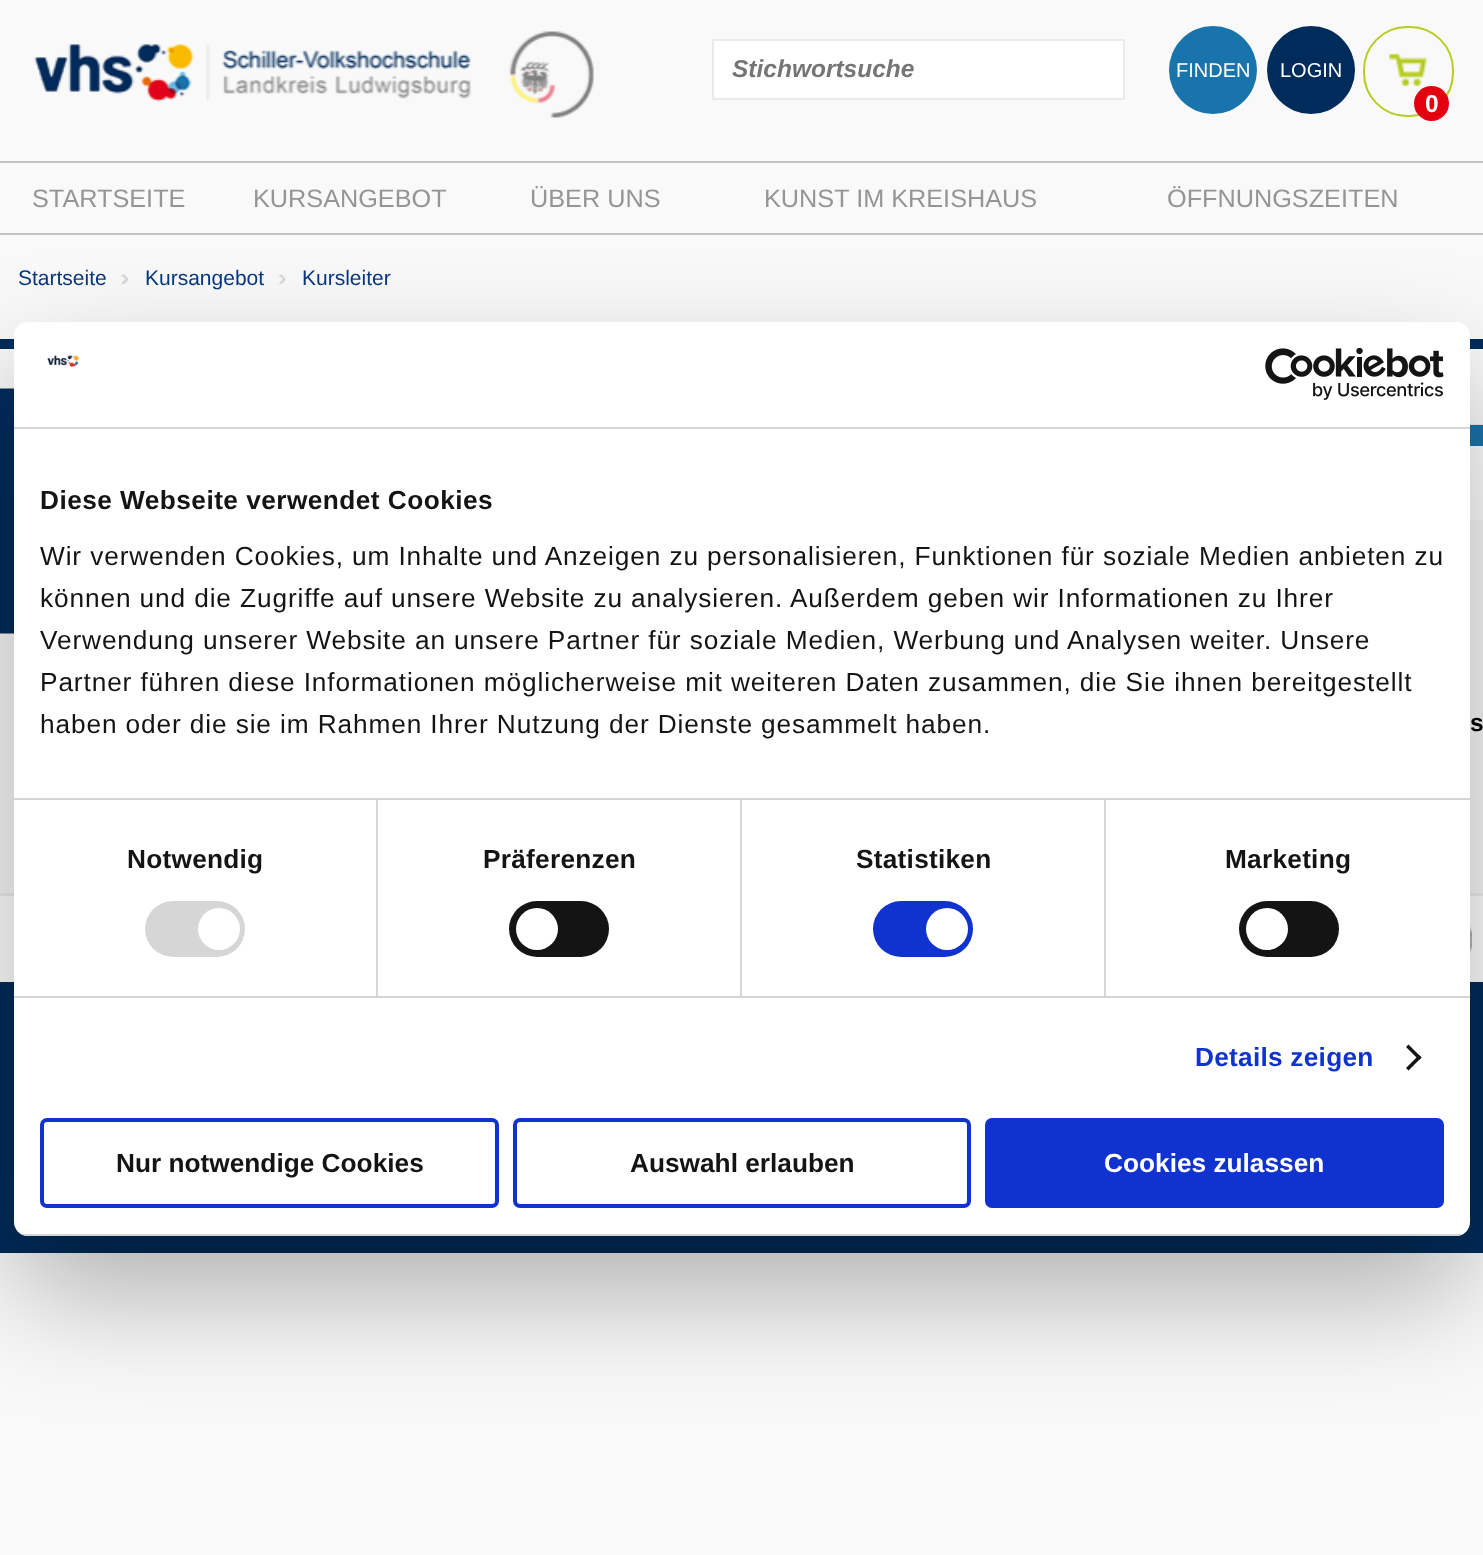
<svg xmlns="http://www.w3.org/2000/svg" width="1483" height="1555">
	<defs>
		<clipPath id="clip1"><rect x="14" y="322" width="1456" height="914" rx="14" /></clipPath>
	</defs>
	<rect width="100%" height="100%" fill="#F9F9F9" />
	<rect x="713" y="40" width="411" height="59" fill="#FFFFFF" stroke="#EAEAEA" stroke-width="2" />
	<text x="732" y="77" font-family="Liberation Sans" font-size="24.5" font-weight="700" font-style="italic" fill="#757575">Stichwortsuche</text>
	<circle cx="1213" cy="70" r="44" fill="#1974AB" />
	<text x="1176" y="77" font-family="Liberation Sans" font-size="20" fill="#FFFFFF">FINDEN</text>
	<circle cx="1311" cy="70" r="44" fill="#002C5B" />
	<text x="1280" y="77" font-family="Liberation Sans" font-size="20" fill="#FFFFFF">LOGIN</text>
	<image x="1388" y="53" width="40" height="34" href="assets/img1.png" />
	<rect x="1364" y="27" width="89" height="89" rx="43" fill="none" stroke="#B7CD21" stroke-width="2" />
	<circle cx="1431.5" cy="103.5" r="17.5" fill="#E3000F" />
	<text x="1425" y="112" font-family="Liberation Sans" font-size="24.5" font-weight="700" fill="#FFFFFF">0</text>
	<image x="34" y="31" width="560" height="87" href="assets/img2.png" />
	<rect x="0" y="161" width="1483" height="2" fill="#C3C3C3" />
	<rect x="0" y="233" width="1483" height="2" fill="#C3C3C3" />
	<g font-family="Liberation Sans" font-size="25.25" fill="#959595">
		<text x="32" y="207">STARTSEITE</text>
		<text x="253" y="207">KURSANGEBOT</text>
		<text x="530" y="207">ÜBER UNS</text>
		<text x="764" y="207">KUNST IM KREISHAUS</text>
		<text x="1167" y="207">ÖFFNUNGSZEITEN</text>
	</g>
	<image x="0" y="388" width="14" height="246" href="assets/img3.png" />
	<text x="18" y="285" font-family="Liberation Sans" font-size="21" fill="#093880">Startseite</text>
	<image x="120" y="274" width="8" height="11" href="assets/img4.png" />
	<text x="145" y="285" font-family="Liberation Sans" font-size="21" fill="#093880">Kursangebot</text>
	<image x="278" y="274" width="8" height="11" href="assets/img5.png" />
	<text x="302" y="285" font-family="Liberation Sans" font-size="21" fill="#093880">Kursleiter</text>
	<rect x="0" y="339" width="1483" height="10" fill="#002C5B" />
	<rect x="1470" y="446" width="13" height="74" fill="#FFFFFF" />
	<rect x="1470" y="424" width="13" height="1" fill="#EAEAEA" />
	<rect x="1470" y="425" width="13" height="21" fill="#1974AB" />
	<text x="1470" y="731" font-family="Liberation Sans" font-size="24.5" font-weight="700" fill="#000000">s</text>
	<rect x="0" y="982" width="1483" height="271" fill="#002C5B" />
	<rect x="0" y="893" width="1483" height="3" fill="#EEEEEE" />
	<rect x="0" y="896" width="1483" height="86" fill="#FFFFFF" />
	<image x="1470" y="926" width="2" height="28" href="assets/img8.png" />
	<rect x="14" y="378" width="1456" height="914" rx="14" fill="#000000" fill-opacity="0.3" filter="blur(59.5px)" />
	<rect x="14" y="322" width="1456" height="914" rx="14" fill="#FFFFFF" />
	<rect x="14" y="427" width="1456" height="2" fill="#D6D6D6" />
	<image x="47" y="355" width="32" height="12" href="assets/img6.png" />
	<image x="1265" y="348" width="179" height="52" href="assets/img7.png" />
	<rect x="14" y="798" width="1456" height="2" fill="#D6D6D6" />
	<text x="40" y="509" font-family="Liberation Sans" font-size="26.25" font-weight="700" letter-spacing="0.45" fill="#141414">Diese Webseite verwendet Cookies</text>
	<g font-family="Liberation Sans" font-size="26.25" letter-spacing="0.88" fill="#141414">
		<text x="40" y="565">Wir verwenden Cookies, um Inhalte und Anzeigen zu personalisieren, Funktionen für soziale Medien anbieten zu</text>
		<text x="40" y="607">können und die Zugriffe auf unsere Website zu analysieren. Außerdem geben wir Informationen zu Ihrer</text>
		<text x="40" y="649">Verwendung unserer Website an unsere Partner für soziale Medien, Werbung und Analysen weiter. Unsere</text>
		<text x="40" y="691">Partner führen diese Informationen möglicherweise mit weiteren Daten zusammen, die Sie ihnen bereitgestellt</text>
		<text x="40" y="733">haben oder die sie im Rahmen Ihrer Nutzung der Dienste gesammelt haben.</text>
	</g>
	<rect x="14" y="996" width="1456" height="2" fill="#D6D6D6" />
	<rect x="376" y="800" width="2" height="196" fill="#D6D6D6" />
	<text x="127" y="868" font-family="Liberation Sans" font-size="26.25" font-weight="700" letter-spacing="0.25" fill="#141414">Notwendig</text>
	<rect x="145" y="901" width="100" height="56" rx="28" fill="#D6D6D6" />
	<circle cx="219" cy="929" r="21" fill="#FFFFFF" />
	<rect x="740" y="800" width="2" height="196" fill="#D6D6D6" />
	<text x="483" y="868" font-family="Liberation Sans" font-size="26.25" font-weight="700" letter-spacing="0.25" fill="#141414">Präferenzen</text>
	<rect x="509" y="901" width="100" height="56" rx="28" fill="#141414" />
	<circle cx="537" cy="929" r="21" fill="#FFFFFF" />
	<rect x="1104" y="800" width="2" height="196" fill="#D6D6D6" />
	<text x="856" y="868" font-family="Liberation Sans" font-size="26.25" font-weight="700" letter-spacing="0.25" fill="#141414">Statistiken</text>
	<rect x="873" y="901" width="100" height="56" rx="28" fill="#1032CF" />
	<circle cx="947" cy="929" r="21" fill="#FFFFFF" />
	<text x="1225" y="868" font-family="Liberation Sans" font-size="26.25" font-weight="700" letter-spacing="0.25" fill="#141414">Marketing</text>
	<rect x="1239" y="901" width="100" height="56" rx="28" fill="#141414" />
	<circle cx="1267" cy="929" r="21" fill="#FFFFFF" />
	<text x="1195" y="1066" font-family="Liberation Sans" font-size="26.25" font-weight="700" letter-spacing="0.25" fill="#1032CF">Details zeigen</text>
	<path d="M1408.5 1044.5L1421.5 1057.5L1419 1060L1406 1047Z" fill="#141414" />
	<path d="M1419 1055L1421.5 1057.5L1408.5 1070.5L1406 1068Z" fill="#141414" />
	<g clip-path="url(#clip1)">
		<rect x="14" y="1234" width="1456" height="2" fill="#D6D6D6" />
	</g>
	<rect x="42" y="1120" width="455" height="86" rx="5" fill="none" stroke="#1032CF" stroke-width="4" />
	<text x="116" y="1172" font-family="Liberation Sans" font-size="26.25" font-weight="700" fill="#141414">Nur notwendige Cookies</text>
	<rect x="515" y="1120" width="454" height="86" rx="5" fill="none" stroke="#1032CF" stroke-width="4" />
	<text x="630" y="1172" font-family="Liberation Sans" font-size="26.25" font-weight="700" fill="#141414">Auswahl erlauben</text>
	<rect x="987" y="1120" width="455" height="86" rx="5" fill="#1032CF" stroke="#1032CF" stroke-width="4" />
	<text x="1104" y="1172" font-family="Liberation Sans" font-size="26.25" font-weight="700" fill="#FFFFFF">Cookies zulassen</text>
</svg>
